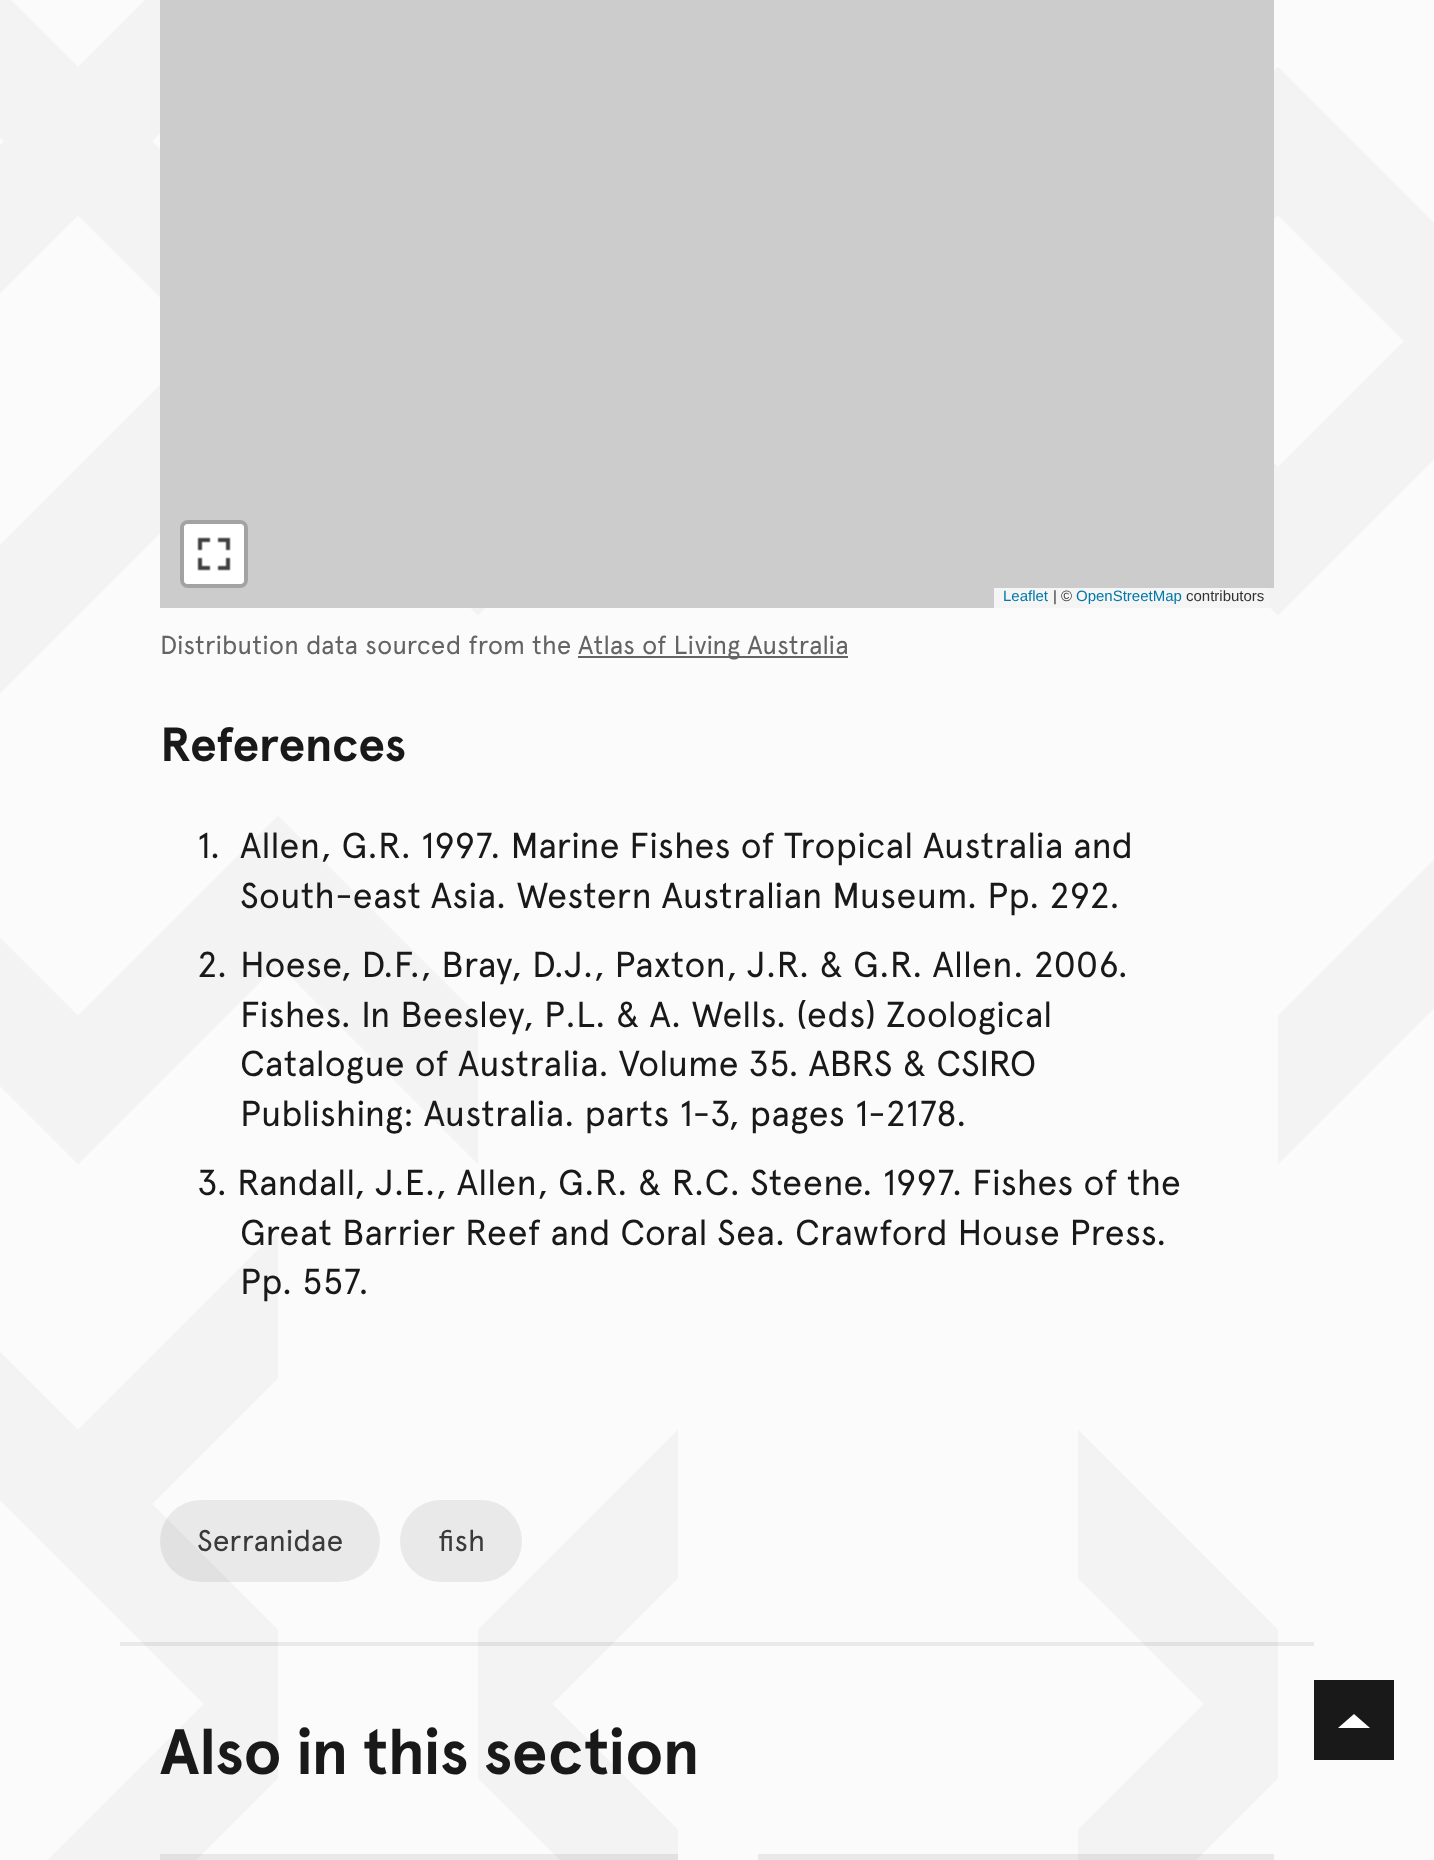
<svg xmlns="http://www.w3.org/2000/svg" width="1434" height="1860">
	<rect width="100%" height="100%" fill="#FBFBFB" />
	<image x="0" y="0" width="1434" height="1860" href="assets/img1.png" />
	<rect x="160" y="0" width="1114" height="372" fill="#CCCCCC" />
	<rect x="160" y="372" width="1064" height="236" fill="#CCCCCC" />
	<rect x="1224" y="372" width="50" height="216" fill="#CCCCCC" />
	<rect x="182" y="522" width="64" height="64" rx="6" fill="none" stroke="#A3A3A3" stroke-width="4" />
	<rect x="184" y="524" width="60" height="60" rx="4" fill="#FFFFFF" />
	<image x="197" y="537" width="34" height="34" href="assets/img2.png" />
	<rect x="994" y="588" width="276" height="20" fill="#F5F5F5" />
	<text x="1003" y="601" font-family="Liberation Sans" font-size="15" fill="#0078A8">Leaflet</text>
	<text x="1053" y="601" font-family="Liberation Sans" font-size="15" fill="#333333">| ©</text>
	<text x="1076" y="601" font-family="Liberation Sans" font-size="15" fill="#0078A8">OpenStreetMap</text>
	<text x="1186" y="601" font-family="Liberation Sans" font-size="15" fill="#333333">contributors</text>
	<text x="160" y="654" font-family="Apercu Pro" font-size="26" fill="#646464">Distribution data sourced from the</text>
	<rect x="578" y="656" width="270" height="2" fill="#646464" />
	<text x="578" y="654" font-family="Apercu Pro" font-size="26" fill="#646464">Atlas of Living Australia</text>
	<text x="160" y="761" font-family="Apercu Pro" font-size="48" font-weight="700" letter-spacing="-0.5" fill="#191919">References</text>
	<g font-family="Apercu Pro" font-size="36" fill="#191919">
		<text x="197" y="858">1.</text>
		<text x="240" y="858">Allen, G.R. 1997. Marine Fishes of Tropical Australia and</text>
		<text x="240" y="908">South-east Asia. Western Australian Museum. Pp. 292.</text>
		<text x="197" y="977">2.</text>
		<text x="240" y="977">Hoese, D.F., Bray, D.J., Paxton, J.R. &amp; G.R. Allen. 2006.</text>
		<text x="240" y="1027">Fishes. In Beesley, P.L. &amp; A. Wells. (eds) Zoological</text>
		<text x="240" y="1076">Catalogue of Australia. Volume 35. ABRS &amp; CSIRO</text>
		<text x="240" y="1126">Publishing: Australia. parts 1-3, pages 1-2178.</text>
		<text x="197" y="1195">3. Randall, J.E., Allen, G.R. &amp; R.C. Steene. 1997. Fishes of the</text>
		<text x="240" y="1245">Great Barrier Reef and Coral Sea. Crawford House Press.</text>
		<text x="240" y="1294">Pp. 557.</text>
	</g>
	<rect x="120" y="1642" width="1194" height="4" fill="#000000" fill-opacity="0.07" />
	<rect x="160" y="1500" width="220" height="82" rx="41" fill="#000000" fill-opacity="0.07" />
	<text x="197" y="1551" font-family="Apercu Pro" font-size="30" fill="#3A3A3A">Serranidae</text>
	<rect x="400" y="1500" width="122" height="82" rx="41" fill="#E9E9E9" />
	<text x="438" y="1551" font-family="Apercu Pro" font-size="30" fill="#3A3A3A">fish</text>
	<text x="160" y="1774" font-family="Apercu Pro" font-size="64" font-weight="700" letter-spacing="-0.6" fill="#191919">Also in this section</text>
	<rect x="160" y="1854" width="518" height="6" fill="#000000" fill-opacity="0.07" />
	<rect x="758" y="1854" width="516" height="6" fill="#000000" fill-opacity="0.07" />
	<rect x="1314" y="1680" width="80" height="80" fill="#191919" />
	<path d="M1370 1728H1338L1354 1714Z" fill="#FFFFFF" />
</svg>
